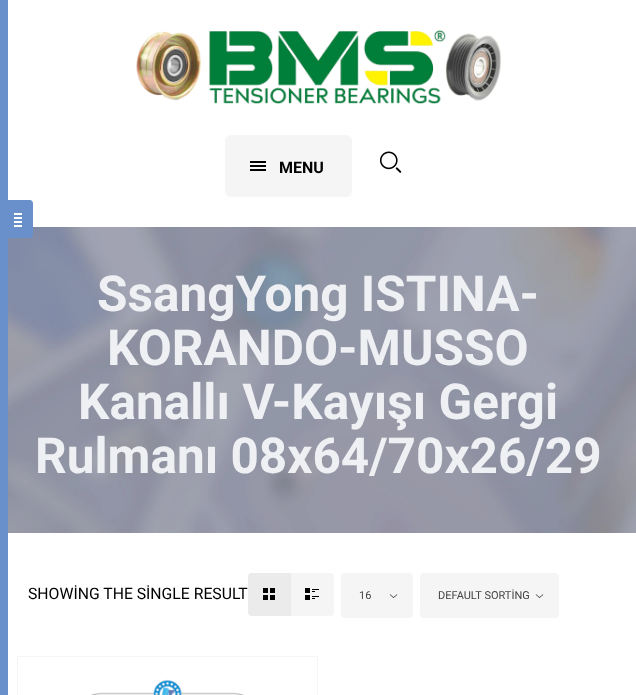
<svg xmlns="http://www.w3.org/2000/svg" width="636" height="695">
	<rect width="100%" height="100%" fill="#FFFFFF" />
	<image x="136" y="30" width="365" height="74" href="assets/img1.png" />
	<rect x="225" y="135" width="127" height="62" rx="6" fill="#F5F5F5" />
	<image x="250" y="161" width="16" height="10" href="assets/img2.png" />
	<text x="279" y="173" font-family="Roboto" font-size="16" font-weight="700" fill="#000000">MENU</text>
	<image x="379" y="151" width="23" height="22" href="assets/img3.png" />
	<rect x="0" y="0" width="8" height="695" fill="#6990CB" />
	<image x="8" y="227" width="628" height="306" href="assets/img5.png" />
	<path d="M0 200H30C31.5 200 33 201.5 33 203V235C33 236.5 31.5 238 30 238H0Z" fill="#6990CB" />
	<image x="14" y="213" width="8" height="14" href="assets/img4.png" />
	<g font-family="Roboto" font-size="49.5" font-weight="700" fill="#EFF0F3">
		<text x="97" y="311">SsangYong ISTINA-</text>
		<text x="107" y="365">KORANDO-MUSSO</text>
		<text x="78" y="419">Kanallı V-Kayışı Gergi</text>
		<text x="35" y="473">Rulmanı 08x64/70x26/29</text>
	</g>
	<text x="28" y="599" font-family="Roboto" font-size="15.75" fill="#000000">SHOWİNG THE SİNGLE RESULT</text>
	<path d="M251 573H291V616H251C249.5 616 248 614.5 248 613V576C248 574.5 249.5 573 251 573Z" fill="#EBEBEB" />
	<image x="263" y="588" width="12" height="12" href="assets/img6.png" />
	<path d="M291 573H331C332.5 573 334 574.5 334 576V613C334 614.5 332.5 616 331 616H291Z" fill="#F5F5F5" />
	<image x="305" y="588" width="14" height="12" href="assets/img7.png" />
	<rect x="341" y="573" width="72" height="45" rx="4" fill="#F5F5F5" />
	<text x="359" y="599" font-family="Roboto" font-size="11" fill="#444444">16</text>
	<image x="389" y="594" width="9" height="4" href="assets/img8.png" />
	<rect x="420" y="573" width="139" height="45" rx="4" fill="#F5F5F5" />
	<text x="438" y="599" font-family="Roboto" font-size="11" fill="#444444">DEFAULT SORTİNG</text>
	<image x="535" y="594" width="9" height="4" href="assets/img8.png" />
	<rect x="17.5" y="656.5" width="300" height="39" fill="none" stroke="#F5F5F5" />
	<image x="91" y="679" width="153" height="16" href="assets/img9.png" />
</svg>
